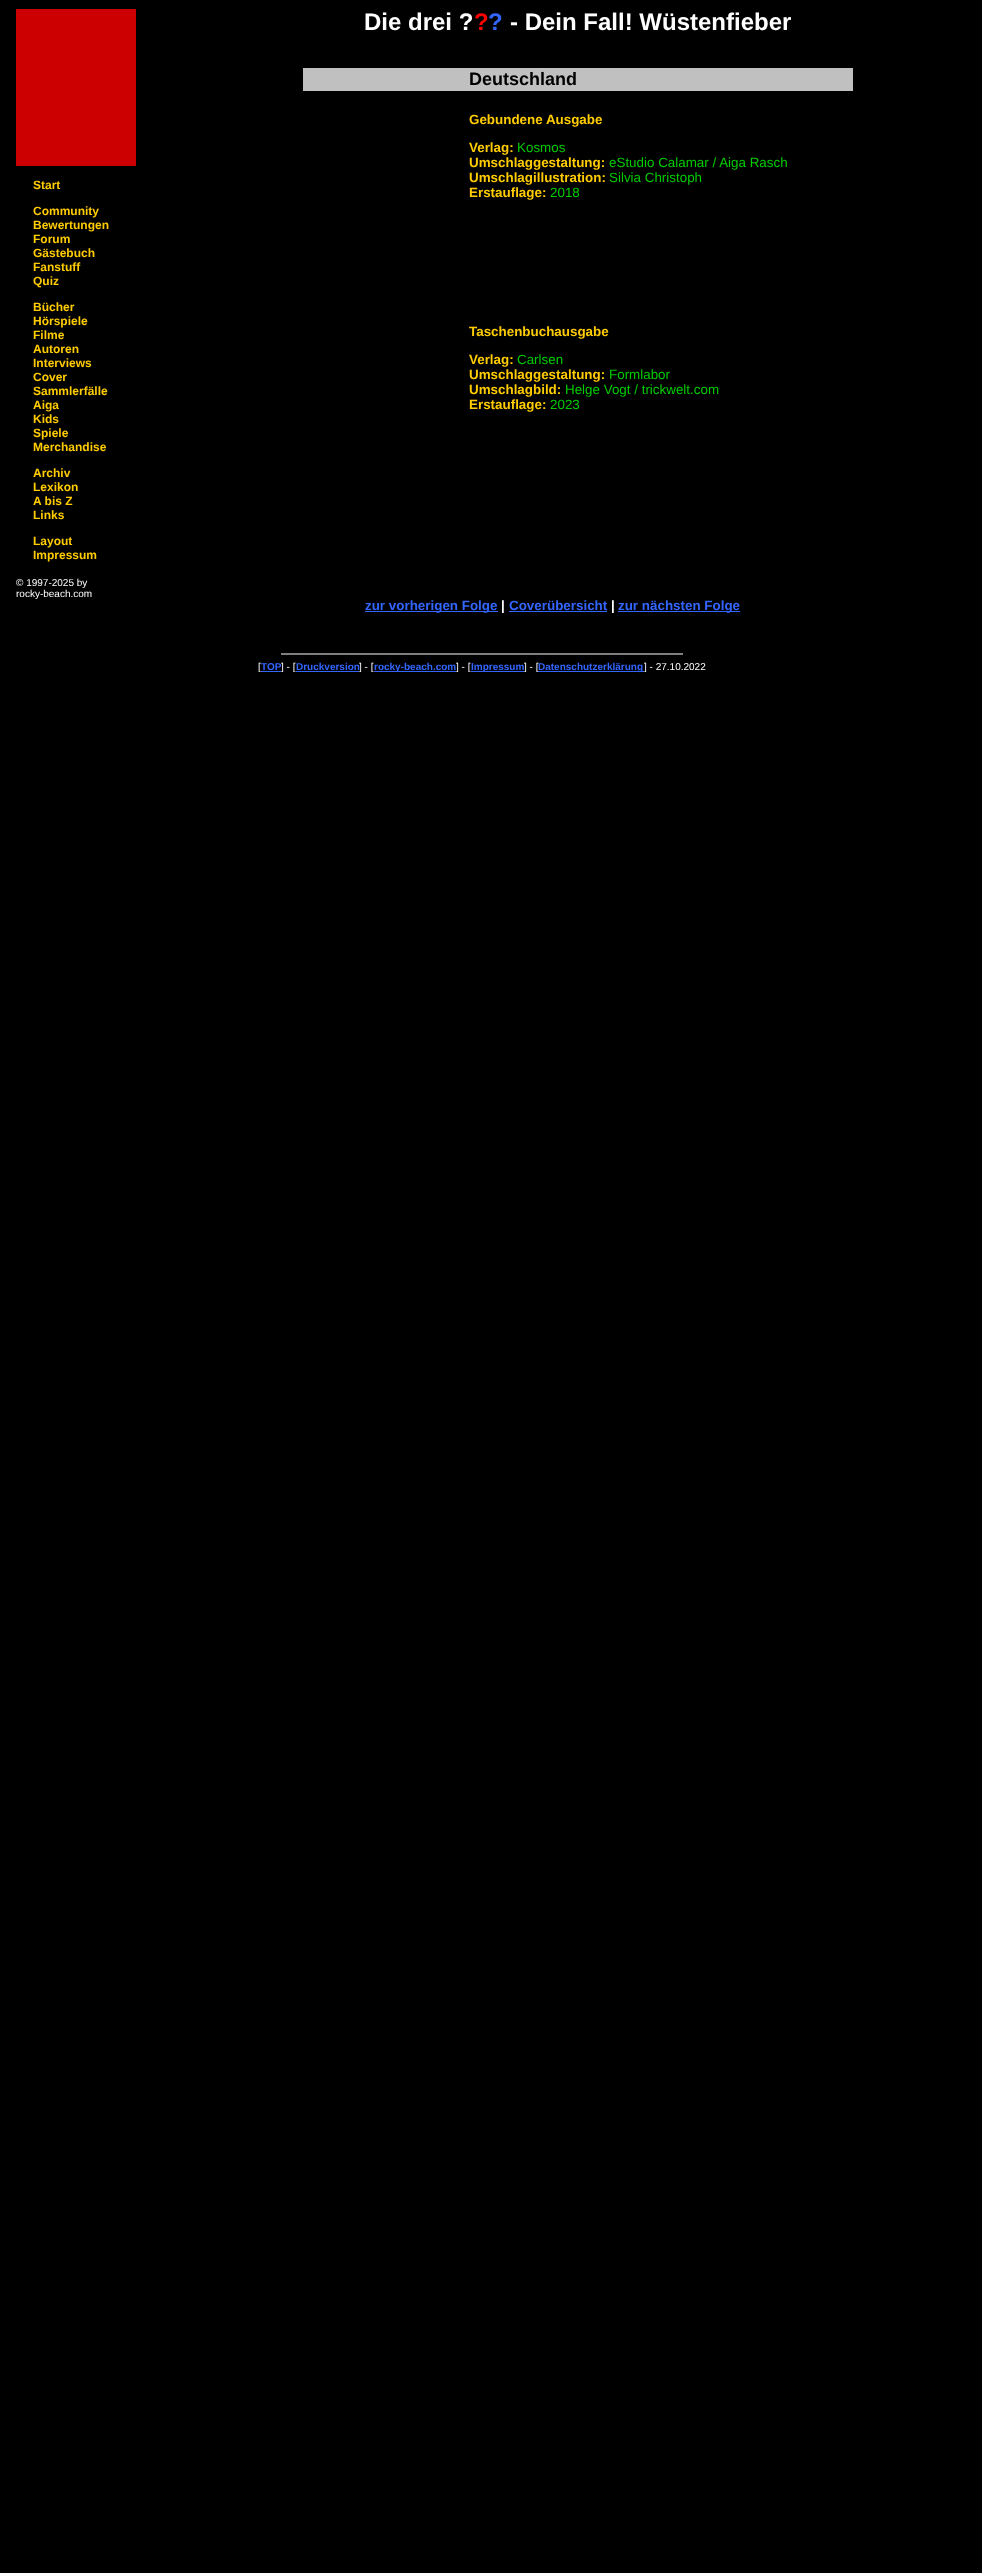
<svg xmlns="http://www.w3.org/2000/svg" width="982" height="2573">
	<rect width="100%" height="100%" fill="#000000" />
	<rect x="16" y="9" width="120" height="157" fill="#CC0000" />
	<g font-family="Liberation Sans" font-size="12" font-weight="700" fill="#FFCC00">
		<text x="33" y="189">Start</text>
		<text x="33" y="215">Community</text>
		<text x="33" y="229">Bewertungen</text>
		<text x="33" y="243">Forum</text>
		<text x="33" y="257">Gästebuch</text>
		<text x="33" y="271">Fanstuff</text>
		<text x="33" y="285">Quiz</text>
		<text x="33" y="311">Bücher</text>
		<text x="33" y="325">Hörspiele</text>
		<text x="33" y="339">Filme</text>
		<text x="33" y="353">Autoren</text>
		<text x="33" y="367">Interviews</text>
		<text x="33" y="381">Cover</text>
		<text x="33" y="395">Sammlerfälle</text>
		<text x="33" y="409">Aiga</text>
		<text x="33" y="423">Kids</text>
		<text x="33" y="437">Spiele</text>
		<text x="33" y="451">Merchandise</text>
		<text x="33" y="477">Archiv</text>
		<text x="33" y="491">Lexikon</text>
		<text x="33" y="505">A bis Z</text>
		<text x="33" y="519">Links</text>
		<text x="33" y="545">Layout</text>
		<text x="33" y="559">Impressum</text>
	</g>
	<g font-family="Liberation Sans" font-size="10" fill="#FFFFFF">
		<text x="16" y="586">© 1997-2025 by</text>
		<text x="16" y="597">rocky-beach.com</text>
	</g>
	<text x="364" y="30" font-family="Liberation Sans" font-size="24" font-weight="700" fill="#FFFFFF">Die drei ?</text>
	<text x="474" y="30" font-family="Liberation Sans" font-size="24" font-weight="700" fill="#FF0000">?</text>
	<text x="488" y="30" font-family="Liberation Sans" font-size="24" font-weight="700" fill="#3366FF">?</text>
	<text x="510" y="30" font-family="Liberation Sans" font-size="24" font-weight="700" fill="#FFFFFF">- Dein Fall! Wüstenfieber</text>
	<rect x="303" y="68" width="550" height="23" fill="#C0C0C0" />
	<text x="469" y="85" font-family="Liberation Sans" font-size="18" font-weight="700" fill="#000000">Deutschland</text>
	<g font-family="Liberation Sans" font-size="13.4" font-weight="700" fill="#FFCC00">
		<text x="469" y="124">Gebundene Ausgabe</text>
		<text x="469" y="152">Verlag:</text>
	</g>
	<text x="517" y="152" font-family="Liberation Sans" font-size="13.4" fill="#00CC00">Kosmos</text>
	<text x="469" y="167" font-family="Liberation Sans" font-size="13.4" font-weight="700" fill="#FFCC00">Umschlaggestaltung:</text>
	<text x="609" y="167" font-family="Liberation Sans" font-size="13.4" fill="#00CC00">eStudio Calamar / Aiga Rasch</text>
	<text x="469" y="182" font-family="Liberation Sans" font-size="13.4" font-weight="700" fill="#FFCC00">Umschlagillustration:</text>
	<text x="609" y="182" font-family="Liberation Sans" font-size="13.4" fill="#00CC00">Silvia Christoph</text>
	<text x="469" y="197" font-family="Liberation Sans" font-size="13.4" font-weight="700" fill="#FFCC00">Erstauflage:</text>
	<text x="550" y="197" font-family="Liberation Sans" font-size="13.4" fill="#00CC00">2018</text>
	<g font-family="Liberation Sans" font-size="13.4" font-weight="700" fill="#FFCC00">
		<text x="469" y="336">Taschenbuchausgabe</text>
		<text x="469" y="364">Verlag:</text>
	</g>
	<text x="517" y="364" font-family="Liberation Sans" font-size="13.4" fill="#00CC00">Carlsen</text>
	<text x="469" y="379" font-family="Liberation Sans" font-size="13.4" font-weight="700" fill="#FFCC00">Umschlaggestaltung:</text>
	<text x="609" y="379" font-family="Liberation Sans" font-size="13.4" fill="#00CC00">Formlabor</text>
	<text x="469" y="394" font-family="Liberation Sans" font-size="13.4" font-weight="700" fill="#FFCC00">Umschlagbild:</text>
	<text x="565" y="394" font-family="Liberation Sans" font-size="13.4" fill="#00CC00">Helge Vogt / trickwelt.com</text>
	<text x="469" y="409" font-family="Liberation Sans" font-size="13.4" font-weight="700" fill="#FFCC00">Erstauflage:</text>
	<text x="550" y="409" font-family="Liberation Sans" font-size="13.4" fill="#00CC00">2023</text>
	<rect x="365" y="611" width="133" height="1" fill="#3366FF" />
	<text x="365" y="610" font-family="Liberation Sans" font-size="13.4" font-weight="700" fill="#3366FF">zur vorherigen Folge</text>
	<text x="501" y="610" font-family="Liberation Sans" font-size="13.4" font-weight="700" fill="#FFFFFF">|</text>
	<text x="509" y="610" font-family="Liberation Sans" font-size="13.4" font-weight="700" fill="#3366FF">Coverübersicht</text>
	<rect x="509" y="611" width="98" height="1" fill="#3366FF" />
	<text x="611" y="610" font-family="Liberation Sans" font-size="13.4" font-weight="700" fill="#FFFFFF">|</text>
	<rect x="618" y="611" width="122" height="1" fill="#3366FF" />
	<text x="618" y="610" font-family="Liberation Sans" font-size="13.4" font-weight="700" fill="#3366FF">zur nächsten Folge</text>
	<rect x="281" y="653" width="402" height="2" fill="#808080" />
	<text x="258" y="670" font-family="Liberation Sans" font-size="10" fill="#FFFFFF">[</text>
	<rect x="261" y="671" width="20" height="1" fill="#3366FF" />
	<text x="261" y="670" font-family="Liberation Sans" font-size="10" font-weight="700" fill="#3366FF">TOP</text>
	<text x="281" y="670" font-family="Liberation Sans" font-size="10" fill="#FFFFFF">] - [</text>
	<rect x="296" y="671" width="63" height="1" fill="#3366FF" />
	<text x="296" y="670" font-family="Liberation Sans" font-size="10" font-weight="700" fill="#3366FF">Druckversion</text>
	<text x="359" y="670" font-family="Liberation Sans" font-size="10" fill="#FFFFFF">] - [</text>
	<rect x="374" y="671" width="82" height="1" fill="#3366FF" />
	<text x="374" y="670" font-family="Liberation Sans" font-size="10" font-weight="700" fill="#3366FF">rocky-beach.com</text>
	<text x="456" y="670" font-family="Liberation Sans" font-size="10" fill="#FFFFFF">] - [</text>
	<rect x="471" y="671" width="53" height="1" fill="#3366FF" />
	<text x="471" y="670" font-family="Liberation Sans" font-size="10" font-weight="700" fill="#3366FF">Impressum</text>
	<text x="524" y="670" font-family="Liberation Sans" font-size="10" fill="#FFFFFF">] - [</text>
	<rect x="538" y="671" width="106" height="1" fill="#3366FF" />
	<text x="538" y="670" font-family="Liberation Sans" font-size="10" font-weight="700" fill="#3366FF">Datenschutzerklärung</text>
	<text x="644" y="670" font-family="Liberation Sans" font-size="10" fill="#FFFFFF">] - 27.10.2022</text>
</svg>
